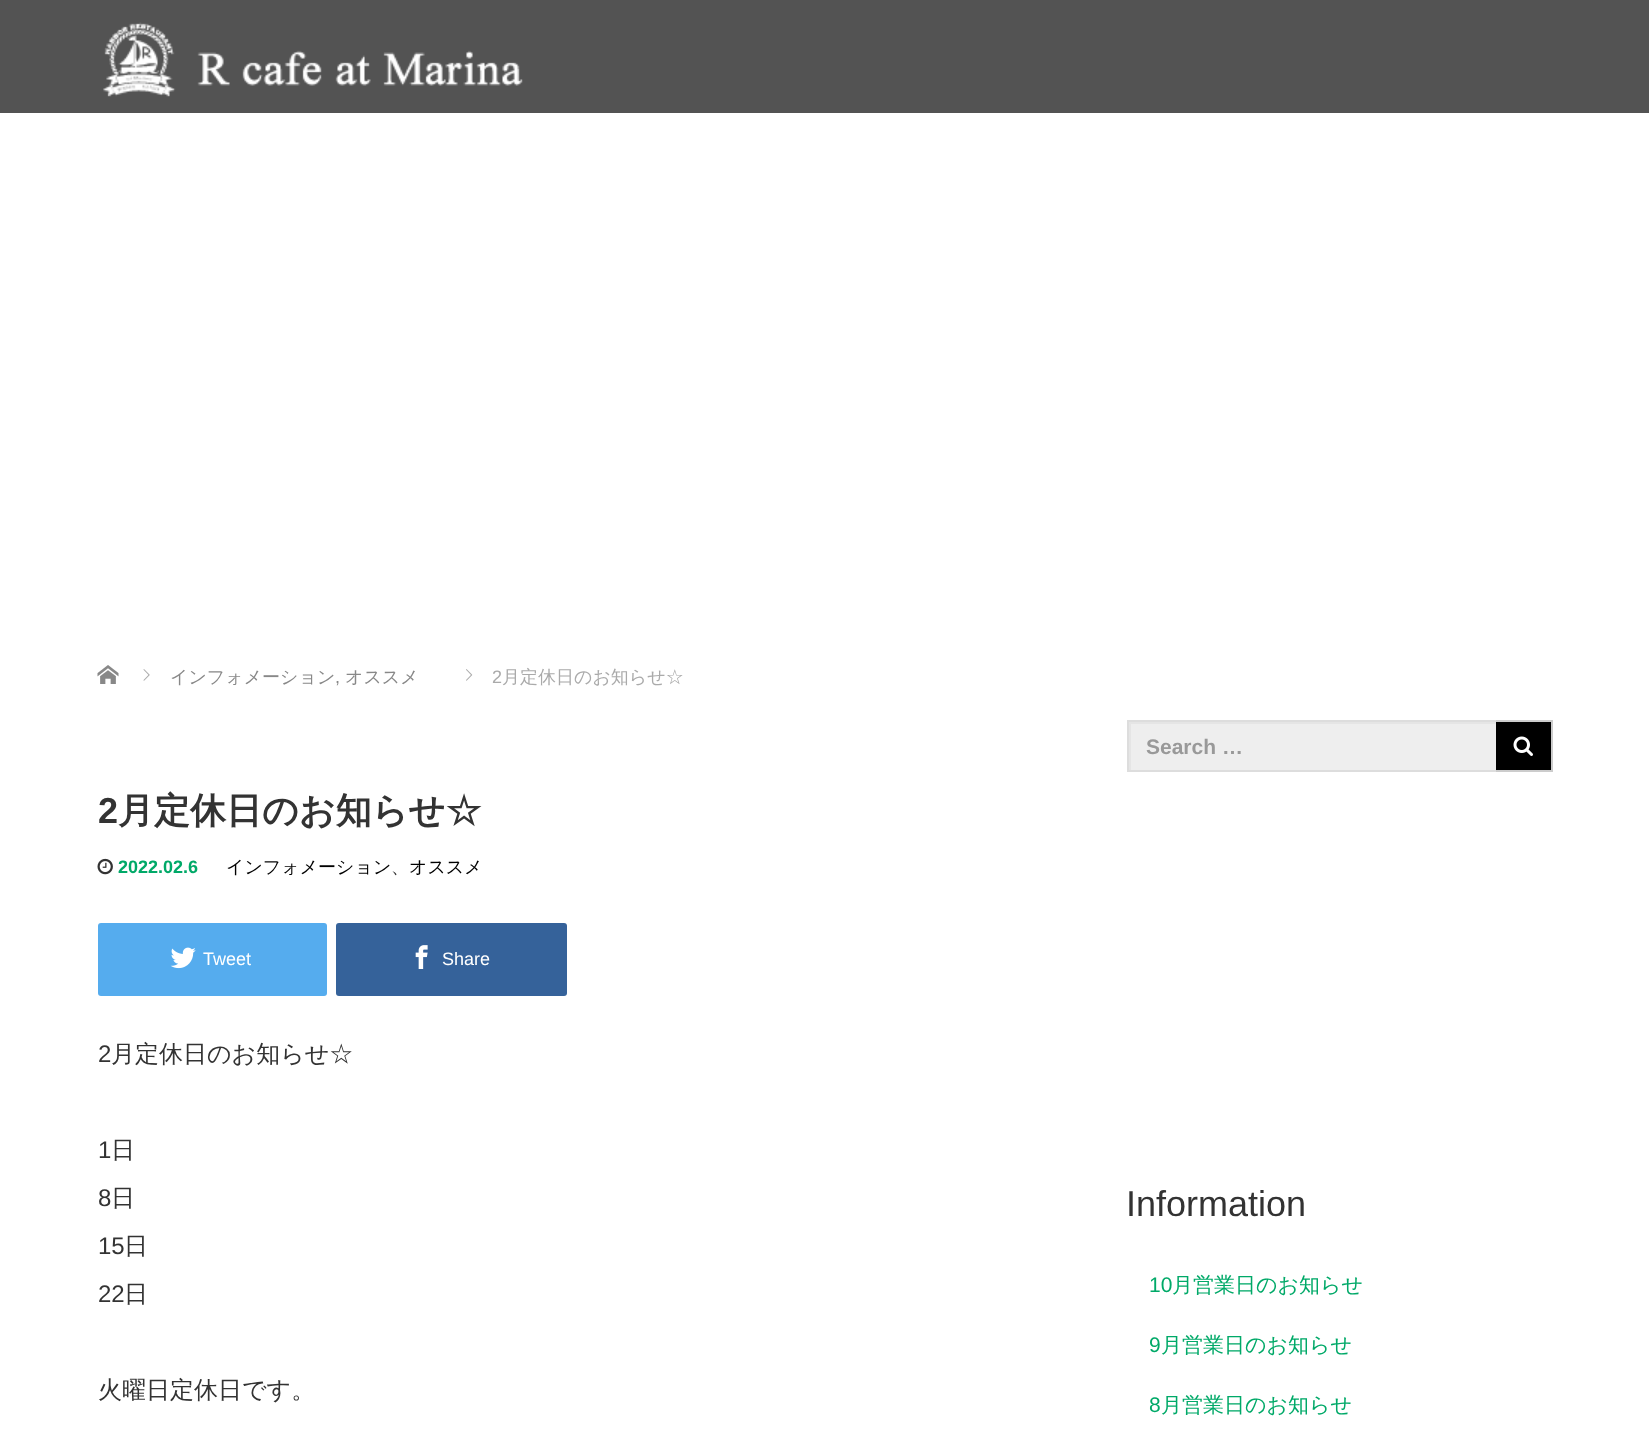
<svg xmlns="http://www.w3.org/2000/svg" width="1649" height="1451">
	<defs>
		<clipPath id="clip1"><rect x="1128" y="722" width="369" height="48" /></clipPath>
	</defs>
	<rect width="100%" height="100%" fill="#FFFFFF" />
	<rect x="0" y="0" width="1649" height="113" fill="#535353" />
	<image x="103" y="22" width="420" height="75" href="assets/img1.png" />
	<image x="97" y="665" width="22" height="19" href="assets/img2.png" />
	<image x="143" y="669" width="7" height="12" href="assets/img3.png" />
	<text x="170" y="683" font-family="WenQuanYi Zen Hei" font-size="18" font-weight="500" fill="#888888">インフォメーション</text>
	<text x="335" y="683" font-family="Liberation Sans" font-size="18" fill="#888888">,</text>
	<text x="345" y="683" font-family="WenQuanYi Zen Hei" font-size="18" font-weight="500" fill="#888888">オススメ</text>
	<image x="466" y="669" width="7" height="12" href="assets/img4.png" />
	<text x="492" y="683" font-family="Liberation Sans" font-size="18" fill="#AAAAAA">2</text>
	<text x="502" y="683" font-family="WenQuanYi Zen Hei" font-size="18" font-weight="500" fill="#AAAAAA">月定休日のお知らせ☆</text>
	<text x="98" y="823" font-family="Liberation Sans" font-size="36" font-weight="700" fill="#333333">2</text>
	<text x="118" y="823" font-family="WenQuanYi Zen Hei" font-size="36" font-weight="700" fill="#333333">月定休日のお知らせ☆</text>
	<image x="97" y="858" width="16" height="17" href="assets/img5.png" />
	<text x="118" y="873" font-family="Liberation Sans" font-size="18" font-weight="700" fill="#00A968">2022.02.6</text>
	<text x="226" y="873" font-family="WenQuanYi Zen Hei" font-size="18" font-weight="500" fill="#000000">インフォメーション</text>
	<text x="391" y="873" font-family="WenQuanYi Zen Hei" font-size="18" font-weight="500" fill="#333333">、</text>
	<text x="409" y="873" font-family="WenQuanYi Zen Hei" font-size="18" font-weight="500" fill="#000000">オススメ</text>
	<rect x="98" y="923" width="229" height="73" rx="3" fill="#55ACEE" />
	<image x="170" y="947" width="26" height="22" href="assets/img6.png" />
	<text x="203" y="965" font-family="Liberation Sans" font-size="18" fill="#FFFFFF">Tweet</text>
	<rect x="336" y="923" width="231" height="73" rx="3" fill="#35629A" />
	<image x="415" y="945" width="13" height="24" href="assets/img7.png" />
	<text x="442" y="965" font-family="Liberation Sans" font-size="18" fill="#FFFFFF">Share</text>
	<text x="98" y="1062" font-family="Liberation Sans" font-size="24" fill="#333333">2</text>
	<text x="111" y="1062" font-family="WenQuanYi Zen Hei" font-size="24" font-weight="500" fill="#333333">月定休日のお知らせ☆</text>
	<text x="98" y="1158" font-family="Liberation Sans" font-size="24" fill="#333333">1</text>
	<text x="111" y="1158" font-family="WenQuanYi Zen Hei" font-size="24" font-weight="500" fill="#333333">日</text>
	<text x="98" y="1206" font-family="Liberation Sans" font-size="24" fill="#333333">8</text>
	<text x="111" y="1206" font-family="WenQuanYi Zen Hei" font-size="24" font-weight="500" fill="#333333">日</text>
	<text x="98" y="1254" font-family="Liberation Sans" font-size="24" fill="#333333">15</text>
	<text x="124" y="1254" font-family="WenQuanYi Zen Hei" font-size="24" font-weight="500" fill="#333333">日</text>
	<text x="98" y="1302" font-family="Liberation Sans" font-size="24" fill="#333333">22</text>
	<g font-family="WenQuanYi Zen Hei" font-size="24" font-weight="500" fill="#333333">
		<text x="124" y="1302">日</text>
		<text x="98" y="1398">火曜日定休日です。</text>
	</g>
	<rect x="1131" y="724" width="365" height="46" fill="#EEEEEE" />
	<g clip-path="url(#clip1)">
		<path d="M980 573H1646V918H980ZM1131 724H1500V772H1131Z" fill="#E5E5E5" fill-rule="evenodd" />
	</g>
	<rect x="1127" y="720" width="370" height="2" fill="#DDDDDD" />
	<rect x="1127" y="770" width="370" height="2" fill="#DDDDDD" />
	<rect x="1127" y="720" width="2" height="51" fill="#DDDDDD" />
	<text x="1146" y="754" font-family="Liberation Sans" font-size="21" font-weight="700" fill="#999999">Search …</text>
	<rect x="1496" y="722" width="55" height="48" fill="#000000" />
	<rect x="1496" y="720" width="57" height="2" fill="#CCCCCC" />
	<rect x="1551" y="720" width="2" height="51" fill="#CCCCCC" />
	<rect x="1496" y="770" width="57" height="2" fill="#CCCCCC" />
	<image x="1513" y="736" width="20" height="20" href="assets/img8.png" />
	<text x="1126" y="1216" font-family="Liberation Sans" font-size="36" fill="#333333">Information</text>
	<text x="1149" y="1292" font-family="Liberation Sans" font-size="21" fill="#00A968">10</text>
	<text x="1172" y="1292" font-family="WenQuanYi Zen Hei" font-size="21" font-weight="500" fill="#00A968">月営業日のお知らせ</text>
	<text x="1149" y="1352" font-family="Liberation Sans" font-size="21" fill="#00A968">9</text>
	<text x="1161" y="1352" font-family="WenQuanYi Zen Hei" font-size="21" font-weight="500" fill="#00A968">月営業日のお知らせ</text>
	<text x="1149" y="1412" font-family="Liberation Sans" font-size="21" fill="#00A968">8</text>
	<text x="1161" y="1412" font-family="WenQuanYi Zen Hei" font-size="21" font-weight="500" fill="#00A968">月営業日のお知らせ</text>
</svg>
